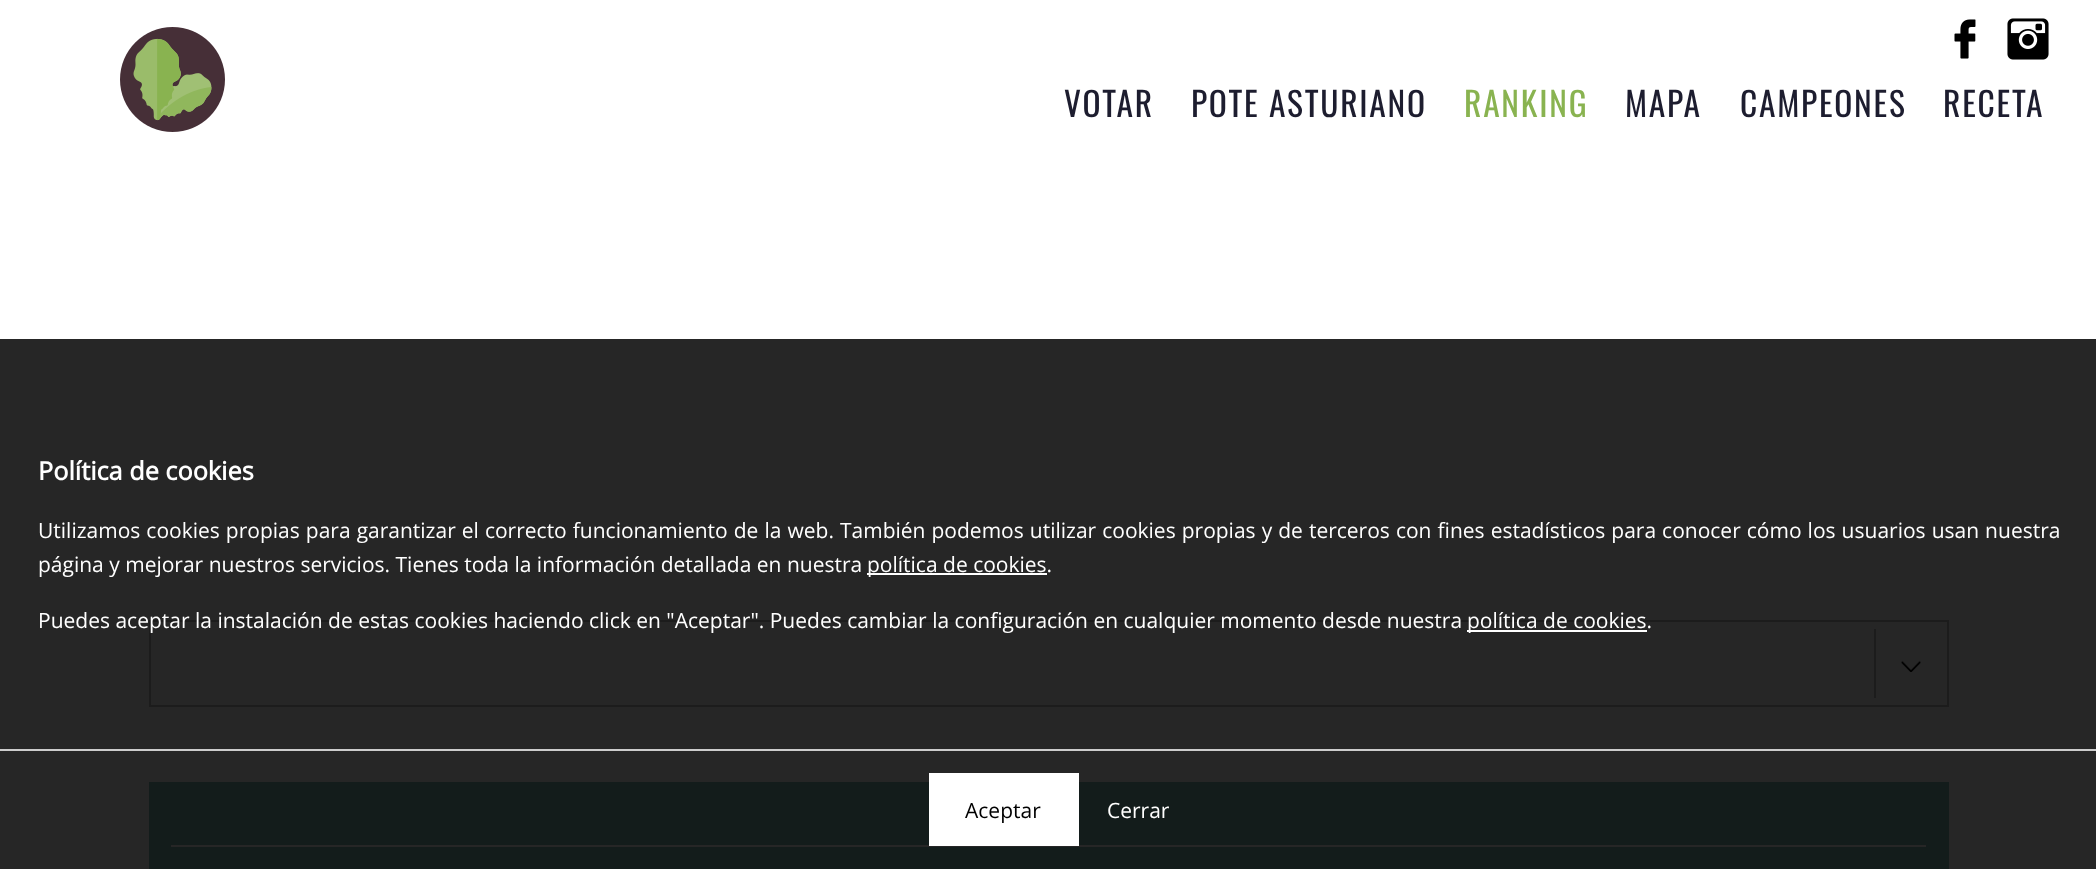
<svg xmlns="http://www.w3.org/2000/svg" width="2096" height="869">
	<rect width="100%" height="100%" fill="#FFFFFF" />
	<image x="120" y="27" width="105" height="105" href="assets/img1.png" />
	<image x="1954" y="19" width="22" height="40" href="assets/img2.png" />
	<image x="2007" y="18" width="42" height="42" href="assets/img3.png" />
	<g font-family="Oswald" font-size="33.5" letter-spacing="1.75" fill="#1D1D2F">
		<text x="1064" y="117">VOTAR</text>
		<text x="1191" y="117">POTE ASTURIANO</text>
	</g>
	<text x="1464" y="117" font-family="Oswald" font-size="33.5" letter-spacing="1.75" fill="#89B350">RANKING</text>
	<g font-family="Oswald" font-size="33.5" letter-spacing="1.75" fill="#1D1D2F">
		<text x="1625" y="117">MAPA</text>
		<text x="1740" y="117">CAMPEONES</text>
		<text x="1943" y="117">RECETA</text>
	</g>
	<image x="1901" y="660" width="20" height="12" href="assets/img4.png" />
	<rect x="1874" y="629" width="2" height="69" fill="#BBBBBB" />
	<rect x="150" y="621" width="1798" height="85" fill="none" stroke="#BBBBBB" stroke-width="2" />
	<rect x="0" y="339" width="2096" height="410" fill="#000000" fill-opacity="0.85" />
	<text x="38" y="480" font-family="Open Sans" font-size="25.25" font-weight="700" fill="#FFFFFF">Política de cookies</text>
	<g font-family="Open Sans" font-size="21" fill="#FFFFFF">
		<text x="38" y="538" word-spacing="0.6">Utilizamos cookies propias para garantizar el correcto funcionamiento de la web. También podemos utilizar cookies propias y de terceros con fines estadísticos para conocer cómo los usuarios usan nuestra</text>
		<text x="38" y="572">página y mejorar nuestros servicios. Tienes toda la información detallada en nuestra</text>
	</g>
	<rect x="867" y="573" width="180" height="2" fill="#FFFFFF" />
	<g font-family="Open Sans" font-size="21" fill="#FFFFFF">
		<text x="867" y="572">política de cookies.</text>
		<text x="38" y="628">Puedes aceptar la instalación de estas cookies haciendo click en "Aceptar". Puedes cambiar la configuración en cualquier momento desde nuestra</text>
	</g>
	<rect x="1467" y="630" width="180" height="2" fill="#FFFFFF" />
	<text x="1467" y="628" font-family="Open Sans" font-size="21" fill="#FFFFFF">política de cookies.</text>
	<rect x="149" y="782" width="1800" height="87" fill="#83BDB3" />
	<rect x="171" y="845" width="1755" height="2" fill="#FFFFFF" />
	<rect x="0" y="751" width="2096" height="118" fill="#000000" fill-opacity="0.85" />
	<rect x="0" y="749" width="2096" height="2" fill="#CCCCCC" />
	<rect x="929" y="773" width="150" height="73" fill="#FFFFFF" />
	<text x="965" y="818" font-family="Open Sans" font-size="21" fill="#000000">Aceptar</text>
	<text x="1107" y="818" font-family="Open Sans" font-size="21" fill="#FFFFFF">Cerrar</text>
</svg>
